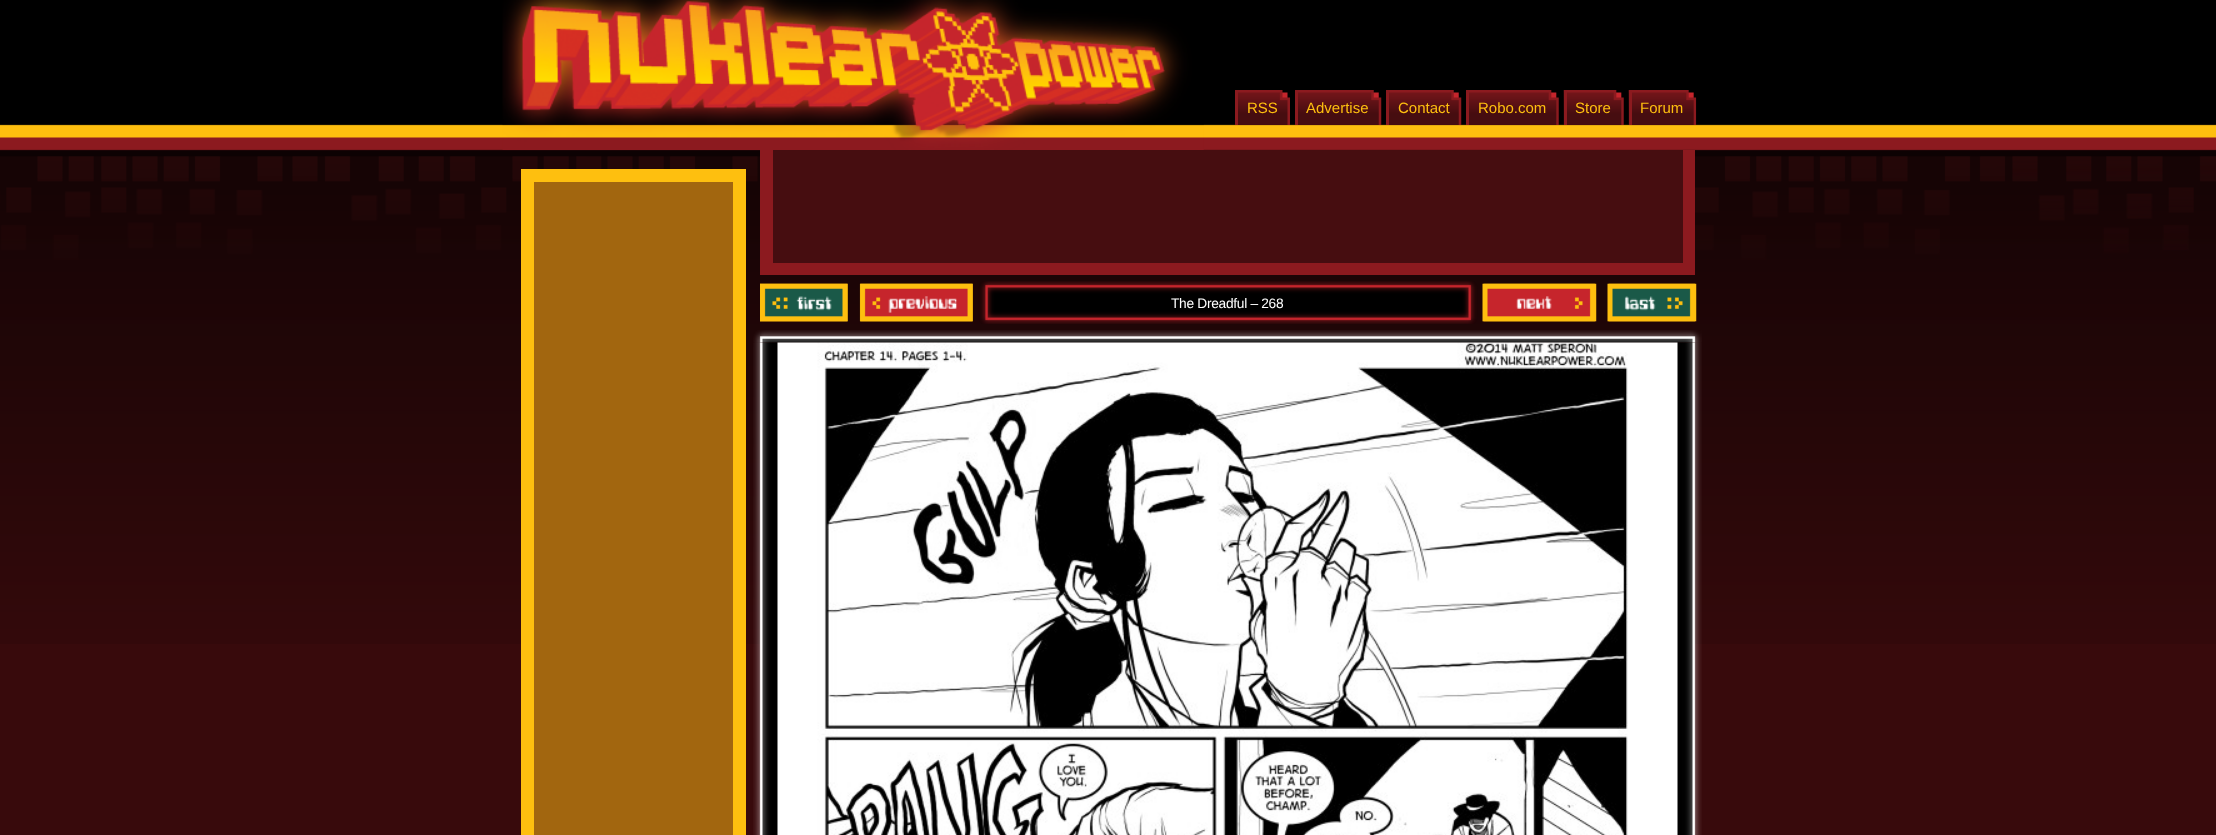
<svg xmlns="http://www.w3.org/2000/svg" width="2216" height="835">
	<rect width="100%" height="100%" fill="#380A0C" />
	<image x="0" y="0" width="2216" height="644" href="assets/img1.png" />
	<image x="502" y="0" width="702" height="150" href="assets/img2.png" />
	<image x="1238" y="90" width="52" height="35" href="assets/img3.png" />
	<rect x="1235" y="90" width="3" height="35" fill="#8C1A1F" />
	<text x="1247" y="113" font-family="Liberation Sans" font-size="15" fill="#FEBF0F">RSS</text>
	<image x="1298" y="90" width="84" height="35" href="assets/img4.png" />
	<rect x="1295" y="90" width="3" height="35" fill="#8C1A1F" />
	<text x="1306" y="113" font-family="Liberation Sans" font-size="15" fill="#FEBF0F">Advertise</text>
	<image x="1389" y="90" width="73" height="35" href="assets/img5.png" />
	<rect x="1386" y="90" width="3" height="35" fill="#8C1A1F" />
	<text x="1398" y="113" font-family="Liberation Sans" font-size="15" fill="#FEBF0F">Contact</text>
	<image x="1469" y="90" width="90" height="35" href="assets/img6.png" />
	<rect x="1466" y="90" width="3" height="35" fill="#8C1A1F" />
	<text x="1478" y="113" font-family="Liberation Sans" font-size="15" fill="#FEBF0F">Robo.com</text>
	<image x="1563" y="90" width="61" height="35" href="assets/img7.png" />
	<rect x="1564" y="90" width="3" height="35" fill="#8C1A1F" />
	<text x="1575" y="113" font-family="Liberation Sans" font-size="15" fill="#FEBF0F">Store</text>
	<image x="1628" y="90" width="69" height="35" href="assets/img8.png" />
	<rect x="1629" y="90" width="3" height="35" fill="#8C1A1F" />
	<text x="1640" y="113" font-family="Liberation Sans" font-size="15" fill="#FEBF0F">Forum</text>
	<rect x="527.5" y="175.5" width="212" height="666" fill="#A2660F" stroke="#FEBF0F" stroke-width="13" />
	<rect x="773" y="150" width="910" height="113" fill="#460D10" />
	<rect x="1683" y="150" width="12" height="113" fill="#8C1A1F" />
	<rect x="773" y="263" width="922" height="12" fill="#8C1A1F" />
	<rect x="760" y="150" width="13" height="125" fill="#8C1A1F" />
	<image x="760" y="281" width="937" height="43" href="assets/img9.png" />
	<image x="760" y="283" width="88" height="39" href="assets/img10.png" />
	<image x="859" y="283" width="114" height="39" href="assets/img11.png" />
	<text x="1171" y="308" font-family="Liberation Sans" font-size="13.75" letter-spacing="-0.3" fill="#FFFFFF">The Dreadful – 268</text>
	<image x="1482" y="283" width="114" height="39" href="assets/img12.png" />
	<image x="1607" y="283" width="88" height="39" href="assets/img13.png" />
	<image x="753" y="330" width="949" height="13" href="assets/img14.png" />
	<image x="753" y="342" width="949" height="493" href="assets/img15.png" />
	<image x="777" y="342" width="901" height="493" href="assets/img16.png" />
</svg>
